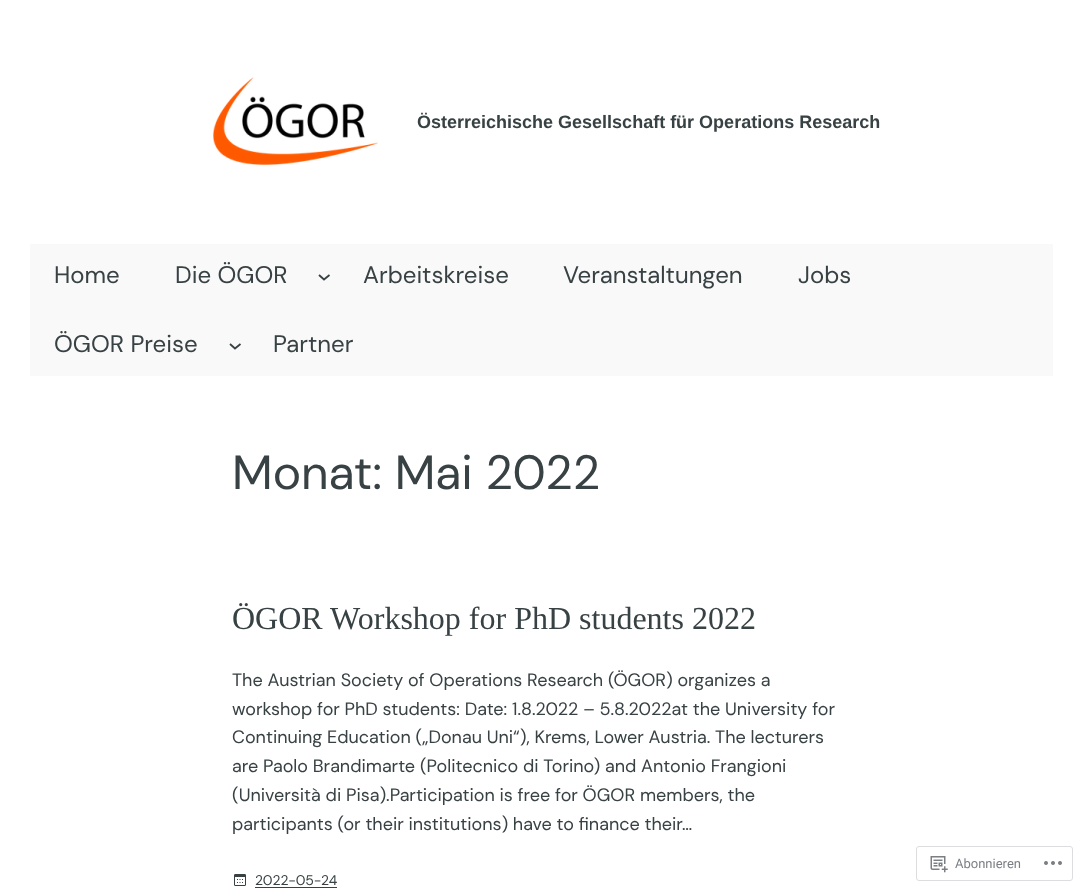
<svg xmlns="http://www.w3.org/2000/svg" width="1083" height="891">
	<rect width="100%" height="100%" fill="#FFFFFF" />
	<image x="213" y="77" width="165" height="88" href="assets/img1.png" />
	<text x="417" y="128" font-family="Liberation Sans" font-size="18" font-weight="700" fill="#384143">Österreichische Gesellschaft für Operations Research</text>
	<rect x="30" y="244" width="1023" height="132" fill="#F9F9F9" />
	<g font-family="DM Sans" font-size="24" fill="#384143">
		<text x="54" y="283">Home</text>
		<text x="175" y="283">Die ÖGOR</text>
	</g>
	<path d="M319 275L324 279.5L329.5 275" fill="none" stroke="#384143" stroke-width="1.8" />
	<g font-family="DM Sans" font-size="24" fill="#384143">
		<text x="363" y="283">Arbeitskreise</text>
		<text x="563" y="283">Veranstaltungen</text>
		<text x="798" y="283">Jobs</text>
		<text x="54" y="352">ÖGOR Preise</text>
	</g>
	<path d="M230 344L235 348.5L240.5 344" fill="none" stroke="#384143" stroke-width="1.8" />
	<text x="273" y="352" font-family="DM Sans" font-size="24" fill="#384143">Partner</text>
	<text x="232" y="489" font-family="DM Sans" font-size="48" fill="#384143">Monat: Mai 2022</text>
	<text x="232" y="629" font-family="Liberation Serif" font-size="32" fill="#384143">ÖGOR Workshop for PhD students 2022</text>
	<g font-family="DM Sans" font-size="18" fill="#384143">
		<text x="232" y="686">The Austrian Society of Operations Research (ÖGOR) organizes a</text>
		<text x="232" y="715">workshop for PhD students: Date: 1.8.2022 – 5.8.2022at the University for</text>
		<text x="232" y="743">Continuing Education („Donau Uni“), Krems, Lower Austria. The lecturers</text>
		<text x="232" y="772">are Paolo Brandimarte (Politecnico di Torino) and Antonio Frangioni</text>
		<text x="232" y="801">(Università di Pisa).Participation is free for ÖGOR members, the</text>
		<text x="232" y="830">participants (or their institutions) have to finance their…</text>
	</g>
	<image x="234" y="874" width="12" height="12" href="assets/img2.png" />
	<text x="255" y="885" font-family="DM Sans" font-size="14" fill="#384143">2022-05-24</text>
	<rect x="255" y="887" width="82" height="1" fill="#384143" />
	<rect x="916.5" y="846.5" width="156" height="34" rx="2.5" fill="none" stroke="#DDDDDF" />
	<image x="930" y="856" width="18" height="17" href="assets/img3.png" />
	<text x="955" y="868" font-family="Roboto" font-size="13" fill="#7B7F85">Abonnieren</text>
	<image x="1044" y="861" width="18" height="4" href="assets/img4.png" />
</svg>
